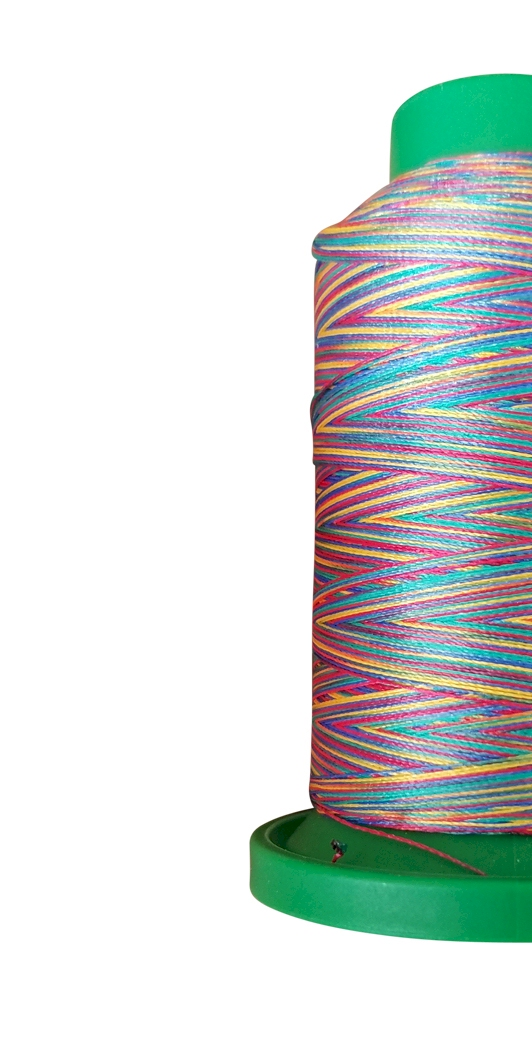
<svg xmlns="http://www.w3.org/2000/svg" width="532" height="1061">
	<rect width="100%" height="100%" fill="#FFFFFF" />
	<image x="248" y="72" width="284" height="873" href="assets/img1.png" />
</svg>
